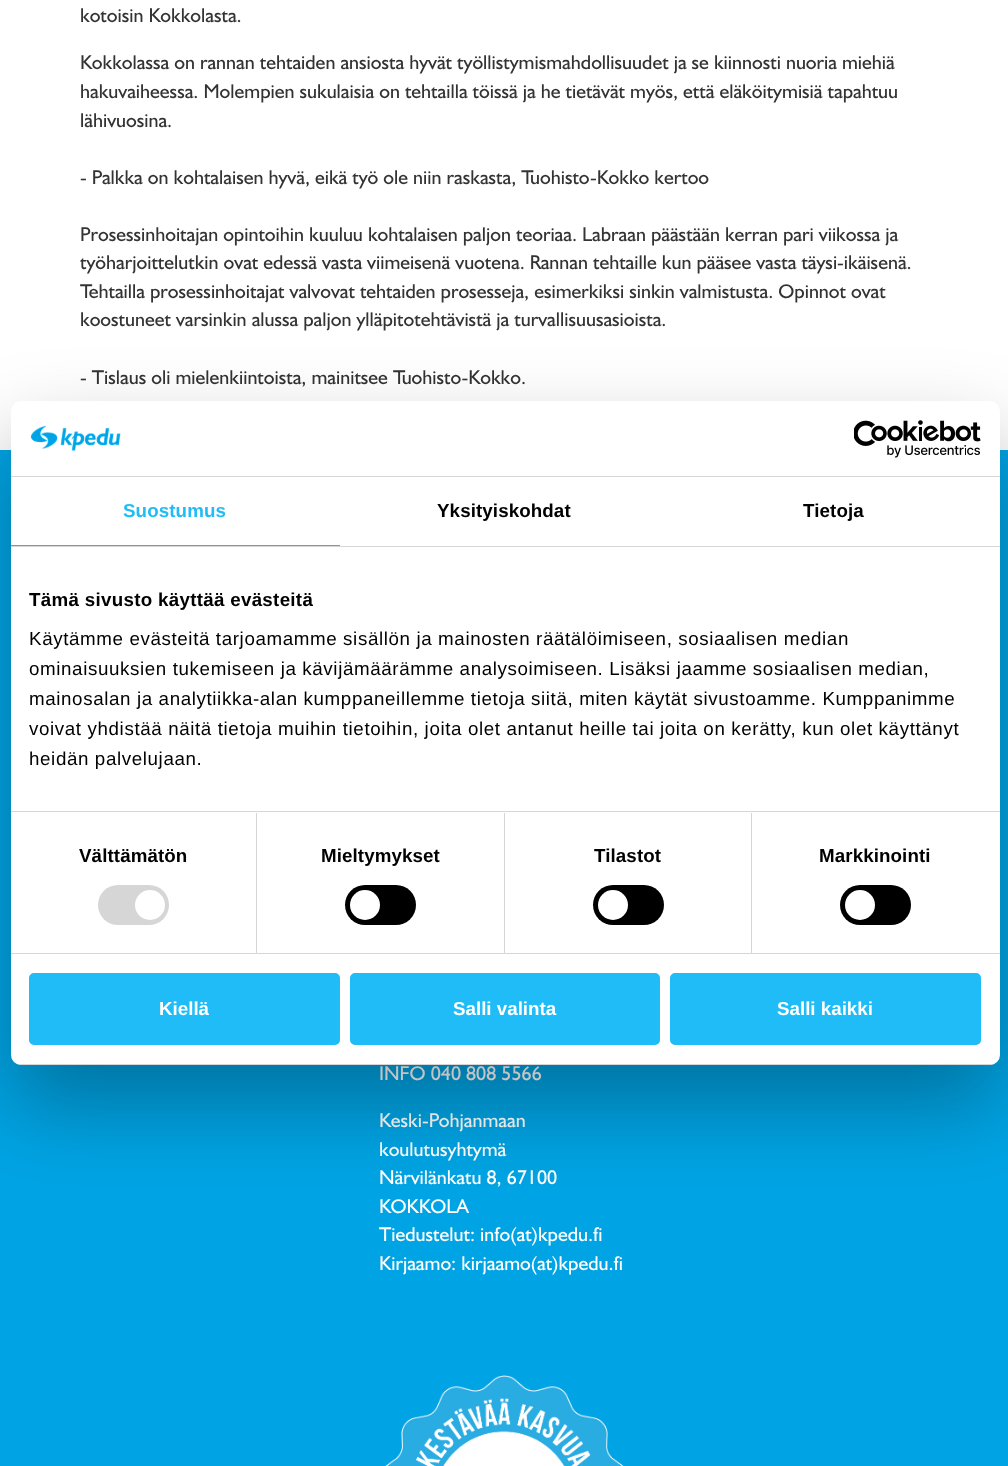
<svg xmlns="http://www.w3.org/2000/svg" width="1008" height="1466">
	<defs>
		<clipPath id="clip1"><rect x="11" y="401" width="989" height="664" rx="10" /></clipPath>
	</defs>
	<rect width="100%" height="100%" fill="#FFFFFF" />
	<g font-family="'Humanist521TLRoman'" font-size="20" fill="#333333">
		<text x="80" y="22">kotoisin Kokkolasta.</text>
		<text x="80" y="69">Kokkolassa on rannan tehtaiden ansiosta hyvät työllistymismahdollisuudet ja se kiinnosti nuoria miehiä</text>
		<text x="80" y="98">hakuvaiheessa. Molempien sukulaisia on tehtailla töissä ja he tietävät myös, että eläköitymisiä tapahtuu</text>
		<text x="80" y="127">lähivuosina.</text>
		<text x="80" y="184">- Palkka on kohtalaisen hyvä, eikä työ ole niin raskasta, Tuohisto-Kokko kertoo</text>
		<text x="80" y="241">Prosessinhoitajan opintoihin kuuluu kohtalaisen paljon teoriaa. Labraan päästään kerran pari viikossa ja</text>
		<text x="80" y="269">työharjoittelutkin ovat edessä vasta viimeisenä vuotena. Rannan tehtaille kun pääsee vasta täysi-ikäisenä.</text>
		<text x="80" y="298">Tehtailla prosessinhoitajat valvovat tehtaiden prosesseja, esimerkiksi sinkin valmistusta. Opinnot ovat</text>
		<text x="80" y="326">koostuneet varsinkin alussa paljon ylläpitotehtävistä ja turvallisuusasioista.</text>
		<text x="80" y="384">- Tislaus oli mielenkiintoista, mainitsee Tuohisto-Kokko.</text>
	</g>
	<rect x="0" y="450" width="1008" height="1016" fill="#00A4E4" />
	<g font-family="'Humanist521TLRoman'" font-size="20" fill="#FFFFFF">
		<text x="379" y="1080">INFO 040 808 5566</text>
		<text x="379" y="1127">Keski-Pohjanmaan</text>
		<text x="379" y="1156">koulutusyhtymä</text>
		<text x="379" y="1184">Närvilänkatu 8, 67100</text>
		<text x="379" y="1213">KOKKOLA</text>
		<text x="379" y="1241">Tiedustelut: info(at)kpedu.fi</text>
		<text x="379" y="1270">Kirjaamo: kirjaamo(at)kpedu.fi</text>
	</g>
	<image x="385" y="1375" width="239" height="91" href="assets/img1.png" />
	<rect x="11" y="441" width="989" height="664" rx="10" fill="#000000" fill-opacity="0.3" filter="blur(42.5px)" />
	<rect x="11" y="401" width="989" height="664" rx="10" fill="#FFFFFF" />
	<rect x="11" y="476" width="989" height="1" fill="#D6D6D6" />
	<image x="30" y="425" width="91" height="26" href="assets/img2.png" />
	<image x="854" y="420" width="127" height="38" href="assets/img3.png" />
	<rect x="11" y="546" width="989" height="1" fill="#D6D6D6" />
	<rect x="11" y="545" width="329" height="1" fill="#20BCF7" />
	<text x="123" y="517" font-family="Liberation Sans" font-size="18.75" font-weight="700" letter-spacing="0.1" fill="#20BCF7">Suostumus</text>
	<g font-family="Liberation Sans" font-size="18.75" font-weight="700" letter-spacing="0.1" fill="#000000">
		<text x="437" y="517">Yksityiskohdat</text>
		<text x="803" y="517">Tietoja</text>
	</g>
	<rect x="11" y="811" width="989" height="1" fill="#D6D6D6" />
	<text x="29" y="606" font-family="Liberation Sans" font-size="18.75" font-weight="700" letter-spacing="0.3" fill="#000000">Tämä sivusto käyttää evästeitä</text>
	<g font-family="Liberation Sans" font-size="18.75" letter-spacing="0.62" fill="#000000">
		<text x="29" y="645">Käytämme evästeitä tarjoamamme sisällön ja mainosten räätälöimiseen, sosiaalisen median</text>
		<text x="29" y="675">ominaisuuksien tukemiseen ja kävijämäärämme analysoimiseen. Lisäksi jaamme sosiaalisen median,</text>
		<text x="29" y="705">mainosalan ja analytiikka-alan kumppaneillemme tietoja siitä, miten käytät sivustoamme. Kumppanimme</text>
		<text x="29" y="735">voivat yhdistää näitä tietoja muihin tietoihin, joita olet antanut heille tai joita on kerätty, kun olet käyttänyt</text>
		<text x="29" y="765">heidän palvelujaan.</text>
	</g>
	<rect x="11" y="953" width="989" height="1" fill="#D6D6D6" />
	<rect x="256" y="813" width="1" height="140" fill="#D6D6D6" />
	<text x="79" y="862" font-family="Liberation Sans" font-size="18.75" font-weight="700" letter-spacing="0.1" fill="#000000">Välttämätön</text>
	<rect x="98" y="885" width="71" height="40" rx="20" fill="#D6D6D6" />
	<circle cx="150" cy="905" r="15" fill="#FFFFFF" />
	<rect x="504" y="813" width="1" height="140" fill="#D6D6D6" />
	<text x="321" y="862" font-family="Liberation Sans" font-size="18.75" font-weight="700" letter-spacing="0.1" fill="#000000">Mieltymykset</text>
	<rect x="345" y="885" width="71" height="40" rx="20" fill="#000000" />
	<circle cx="365" cy="905" r="15" fill="#FFFFFF" />
	<rect x="751" y="813" width="1" height="140" fill="#D6D6D6" />
	<text x="594" y="862" font-family="Liberation Sans" font-size="18.75" font-weight="700" letter-spacing="0.1" fill="#000000">Tilastot</text>
	<rect x="593" y="885" width="71" height="40" rx="20" fill="#000000" />
	<circle cx="613" cy="905" r="15" fill="#FFFFFF" />
	<text x="819" y="862" font-family="Liberation Sans" font-size="18.75" font-weight="700" letter-spacing="0.1" fill="#000000">Markkinointi</text>
	<rect x="840" y="885" width="71" height="40" rx="20" fill="#000000" />
	<circle cx="860" cy="905" r="15" fill="#FFFFFF" />
	<g clip-path="url(#clip1)">
		<rect x="11" y="1064" width="989" height="1" fill="#D6D6D6" />
	</g>
	<rect x="30.5" y="974.5" width="308" height="69" rx="3.5" fill="#20BCF7" stroke="#20BCF7" stroke-width="3" />
	<text x="159" y="1015" font-family="Liberation Sans" font-size="18.75" font-weight="700" fill="#FFFFFF">Kiellä</text>
	<rect x="351.5" y="974.5" width="307" height="69" rx="3.5" fill="#20BCF7" stroke="#20BCF7" stroke-width="3" />
	<text x="453" y="1015" font-family="Liberation Sans" font-size="18.75" font-weight="700" fill="#FFFFFF">Salli valinta</text>
	<rect x="671.5" y="974.5" width="308" height="69" rx="3.5" fill="#20BCF7" stroke="#20BCF7" stroke-width="3" />
	<text x="777" y="1015" font-family="Liberation Sans" font-size="18.75" font-weight="700" fill="#FFFFFF">Salli kaikki</text>
</svg>
